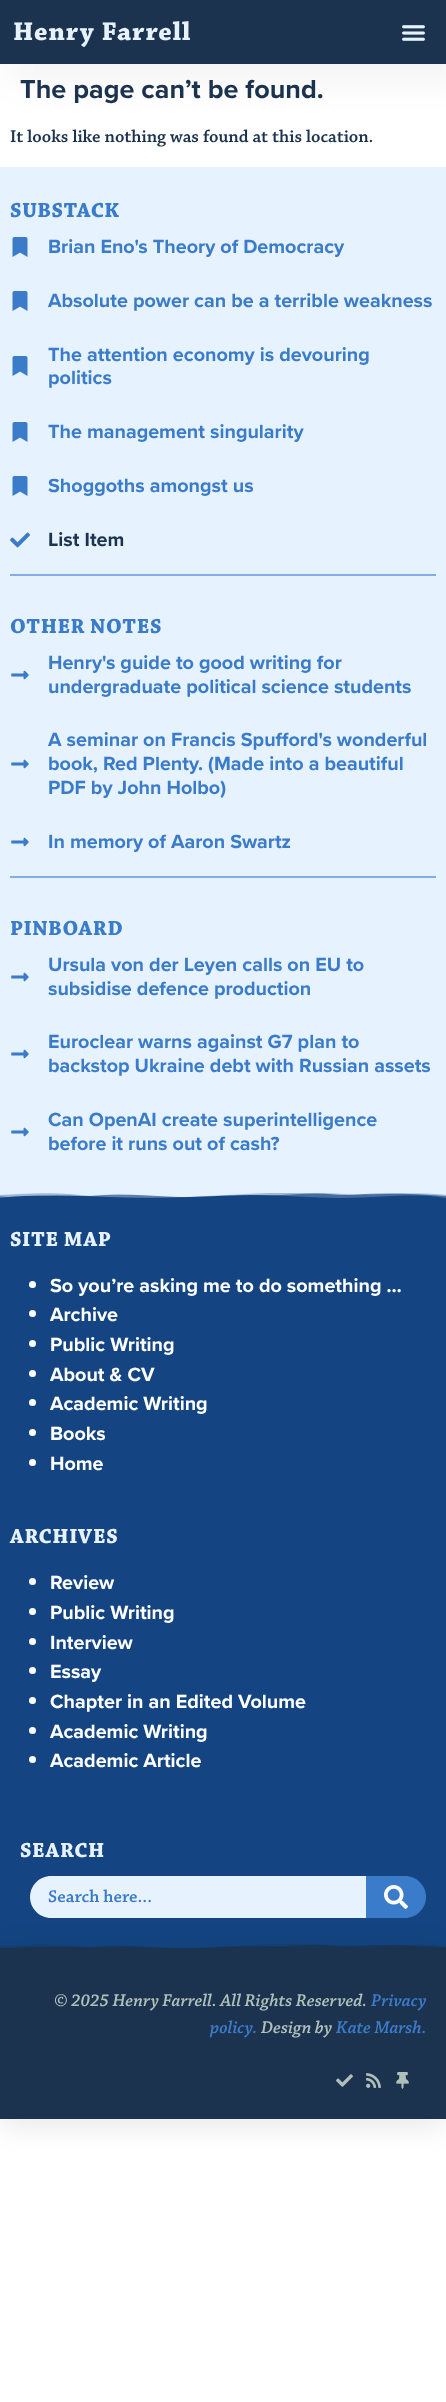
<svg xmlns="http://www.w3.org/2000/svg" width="446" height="2402">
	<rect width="100%" height="100%" fill="#FFFFFF" />
	<rect x="10" y="10" width="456" height="74" fill="#000000" fill-opacity="0.04" filter="blur(15px)" />
	<rect x="0" y="0" width="446" height="64" fill="#1C334F" />
	<text x="13" y="40" font-family="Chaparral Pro" font-size="27" font-weight="700" letter-spacing="0.9" fill="#E7F2FF">Henry Farrell</text>
	<image x="402" y="25" width="23" height="16" href="assets/img1.png" />
	<text x="20" y="98" font-family="Proxima Nova" font-size="27" font-weight="700" fill="#1C334F">The page can’t be found.</text>
	<text x="10" y="142" font-family="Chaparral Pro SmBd" font-size="18" font-weight="600" fill="#1C334F">It looks like nothing was found at this location.</text>
	<rect x="0" y="167" width="446" height="1031" fill="#E7F2FF" />
	<rect x="10" y="574" width="426" height="2" fill="#80AFE8" />
	<text x="10" y="217" font-family="Chaparral Pro" font-size="21.5" font-weight="700" letter-spacing="0.5" fill="#3B7CCA">SUBSTACK</text>
	<image x="12" y="237" width="16" height="20" href="assets/img2.png" />
	<text x="48" y="253" font-family="Proxima Nova" font-size="19.75" font-weight="700" fill="#3B7CCA">Brian Eno's Theory of Democracy</text>
	<image x="12" y="291" width="16" height="20" href="assets/img2.png" />
	<text x="48" y="307" font-family="Proxima Nova" font-size="19.75" font-weight="700" fill="#3B7CCA">Absolute power can be a terrible weakness</text>
	<image x="12" y="356" width="16" height="20" href="assets/img2.png" />
	<g font-family="Proxima Nova" font-size="19.75" font-weight="700" fill="#3B7CCA">
		<text x="48" y="361">The attention economy is devouring</text>
		<text x="48" y="384">politics</text>
	</g>
	<image x="12" y="422" width="16" height="20" href="assets/img2.png" />
	<text x="48" y="438" font-family="Proxima Nova" font-size="19.75" font-weight="700" fill="#3B7CCA">The management singularity</text>
	<image x="12" y="476" width="16" height="20" href="assets/img2.png" />
	<text x="48" y="492" font-family="Proxima Nova" font-size="19.75" font-weight="700" fill="#3B7CCA">Shoggoths amongst us</text>
	<image x="10" y="532" width="20" height="16" href="assets/img3.png" />
	<text x="48" y="546" font-family="Proxima Nova" font-size="19.75" font-weight="700" fill="#1C334F">List Item</text>
	<rect x="10" y="876" width="426" height="2" fill="#80AFE8" />
	<text x="10" y="633" font-family="Chaparral Pro" font-size="21.5" font-weight="700" letter-spacing="0.5" fill="#3B7CCA">OTHER NOTES</text>
	<image x="11" y="670" width="18" height="10" href="assets/img4.png" />
	<g font-family="Proxima Nova" font-size="19.75" font-weight="700" fill="#3B7CCA">
		<text x="48" y="669">Henry's guide to good writing for</text>
		<text x="48" y="693">undergraduate political science students</text>
	</g>
	<image x="11" y="759" width="18" height="10" href="assets/img4.png" />
	<g font-family="Proxima Nova" font-size="19.75" font-weight="700" fill="#3B7CCA">
		<text x="48" y="746">A seminar on Francis Spufford's wonderful</text>
		<text x="48" y="770">book, Red Plenty. (Made into a beautiful</text>
		<text x="48" y="794">PDF by John Holbo)</text>
	</g>
	<image x="11" y="837" width="18" height="10" href="assets/img4.png" />
	<text x="48" y="848" font-family="Proxima Nova" font-size="19.75" font-weight="700" fill="#3B7CCA">In memory of Aaron Swartz</text>
	<text x="10" y="935" font-family="Chaparral Pro" font-size="21.5" font-weight="700" letter-spacing="0.5" fill="#3B7CCA">PINBOARD</text>
	<image x="11" y="972" width="18" height="10" href="assets/img4.png" />
	<g font-family="Proxima Nova" font-size="19.75" font-weight="700" fill="#3B7CCA">
		<text x="48" y="971">Ursula von der Leyen calls on EU to</text>
		<text x="48" y="995">subsidise defence production</text>
	</g>
	<image x="11" y="1049" width="18" height="10" href="assets/img4.png" />
	<g font-family="Proxima Nova" font-size="19.75" font-weight="700" fill="#3B7CCA">
		<text x="48" y="1048">Euroclear warns against G7 plan to</text>
		<text x="48" y="1072">backstop Ukraine debt with Russian assets</text>
	</g>
	<image x="11" y="1127" width="18" height="10" href="assets/img4.png" />
	<g font-family="Proxima Nova" font-size="19.75" font-weight="700" fill="#3B7CCA">
		<text x="48" y="1126">Can OpenAI create superintelligence</text>
		<text x="48" y="1150">before it runs out of cash?</text>
	</g>
	<image x="0" y="1193" width="446" height="5" href="assets/img5.png" />
	<rect x="0" y="1198" width="446" height="750" fill="#144582" />
	<text x="10" y="1246" font-family="Chaparral Pro" font-size="21.5" font-weight="700" letter-spacing="0.5" fill="#E7F2FF">SITE MAP</text>
	<circle cx="32.5" cy="1284.5" r="3.5" fill="#FFFFFF" />
	<text x="50" y="1292" font-family="Proxima Nova" font-size="19.75" font-weight="700" fill="#FFFFFF">So you’re asking me to do something …</text>
	<circle cx="32.5" cy="1313.5" r="3.5" fill="#FFFFFF" />
	<text x="50" y="1321" font-family="Proxima Nova" font-size="19.75" font-weight="700" fill="#FFFFFF">Archive</text>
	<circle cx="32.5" cy="1343.5" r="3.5" fill="#FFFFFF" />
	<text x="50" y="1351" font-family="Proxima Nova" font-size="19.75" font-weight="700" fill="#FFFFFF">Public Writing</text>
	<circle cx="32.5" cy="1373.5" r="3.5" fill="#FFFFFF" />
	<text x="50" y="1381" font-family="Proxima Nova" font-size="19.75" font-weight="700" fill="#FFFFFF">About &amp; CV</text>
	<circle cx="32.5" cy="1402.5" r="3.5" fill="#FFFFFF" />
	<text x="50" y="1410" font-family="Proxima Nova" font-size="19.75" font-weight="700" fill="#FFFFFF">Academic Writing</text>
	<circle cx="32.5" cy="1432.5" r="3.5" fill="#FFFFFF" />
	<text x="50" y="1440" font-family="Proxima Nova" font-size="19.75" font-weight="700" fill="#FFFFFF">Books</text>
	<circle cx="32.5" cy="1462.5" r="3.5" fill="#FFFFFF" />
	<text x="50" y="1470" font-family="Proxima Nova" font-size="19.75" font-weight="700" fill="#FFFFFF">Home</text>
	<text x="10" y="1543" font-family="Chaparral Pro" font-size="21.5" font-weight="700" letter-spacing="0.5" fill="#E7F2FF">ARCHIVES</text>
	<circle cx="32.5" cy="1581.5" r="3.5" fill="#FFFFFF" />
	<text x="50" y="1589" font-family="Proxima Nova" font-size="19.75" font-weight="700" fill="#FFFFFF">Review</text>
	<circle cx="32.5" cy="1611.5" r="3.5" fill="#FFFFFF" />
	<text x="50" y="1619" font-family="Proxima Nova" font-size="19.75" font-weight="700" fill="#FFFFFF">Public Writing</text>
	<circle cx="32.5" cy="1641.5" r="3.5" fill="#FFFFFF" />
	<text x="50" y="1649" font-family="Proxima Nova" font-size="19.75" font-weight="700" fill="#FFFFFF">Interview</text>
	<circle cx="32.5" cy="1670.5" r="3.5" fill="#FFFFFF" />
	<text x="50" y="1678" font-family="Proxima Nova" font-size="19.75" font-weight="700" fill="#FFFFFF">Essay</text>
	<circle cx="32.5" cy="1700.5" r="3.5" fill="#FFFFFF" />
	<text x="50" y="1708" font-family="Proxima Nova" font-size="19.75" font-weight="700" fill="#FFFFFF">Chapter in an Edited Volume</text>
	<circle cx="32.5" cy="1730.5" r="3.5" fill="#FFFFFF" />
	<text x="50" y="1738" font-family="Proxima Nova" font-size="19.75" font-weight="700" fill="#FFFFFF">Academic Writing</text>
	<circle cx="32.5" cy="1759.5" r="3.5" fill="#FFFFFF" />
	<text x="50" y="1767" font-family="Proxima Nova" font-size="19.75" font-weight="700" fill="#FFFFFF">Academic Article</text>
	<text x="20" y="1857" font-family="Chaparral Pro" font-size="21.5" font-weight="700" letter-spacing="0.5" fill="#E7F2FF">SEARCH</text>
	<path d="M51 1876H366V1918H51C39.5 1918 30 1908.5 30 1897C30 1885.5 39.5 1876 51 1876Z" fill="#E7F2FF" />
	<text x="48" y="1902" font-family="Chaparral Pro SmBd" font-size="18" font-weight="600" fill="#3B7CCA">Search here...</text>
	<path d="M366 1876H405C416.5 1876 426 1885.5 426 1897C426 1908.5 416.5 1918 405 1918H366Z" fill="#3B7CCA" />
	<image x="384" y="1885" width="24" height="24" href="assets/img6.png" />
	<image x="0" y="1944" width="446" height="4" href="assets/img7.png" />
	<rect x="0" y="1953" width="446" height="171" fill="#000000" fill-opacity="0.1" filter="blur(15px)" />
	<rect x="0" y="1948" width="446" height="171" fill="#1C334F" />
	<text x="54" y="2006" font-family="Chaparral Pro SmBd" font-size="18" font-weight="600" font-style="italic" fill="#B0BFBA">© 2025 Henry Farrell. All Rights Reserved.</text>
	<g font-family="Chaparral Pro SmBd" font-size="18" font-weight="600" font-style="italic" fill="#3B7CCA">
		<text x="371" y="2006">Privacy</text>
		<text x="210" y="2033">policy.</text>
	</g>
	<text x="261" y="2033" font-family="Chaparral Pro SmBd" font-size="18" font-weight="600" font-style="italic" fill="#B0BFBA">Design by</text>
	<text x="336" y="2033" font-family="Chaparral Pro SmBd" font-size="18" font-weight="600" font-style="italic" fill="#3B7CCA">Kate Marsh.</text>
	<image x="336" y="2074" width="17" height="13" href="assets/img8.png" />
	<image x="366" y="2073" width="15" height="15" href="assets/img9.png" />
	<image x="396" y="2072" width="13" height="17" href="assets/img10.png" />
</svg>
